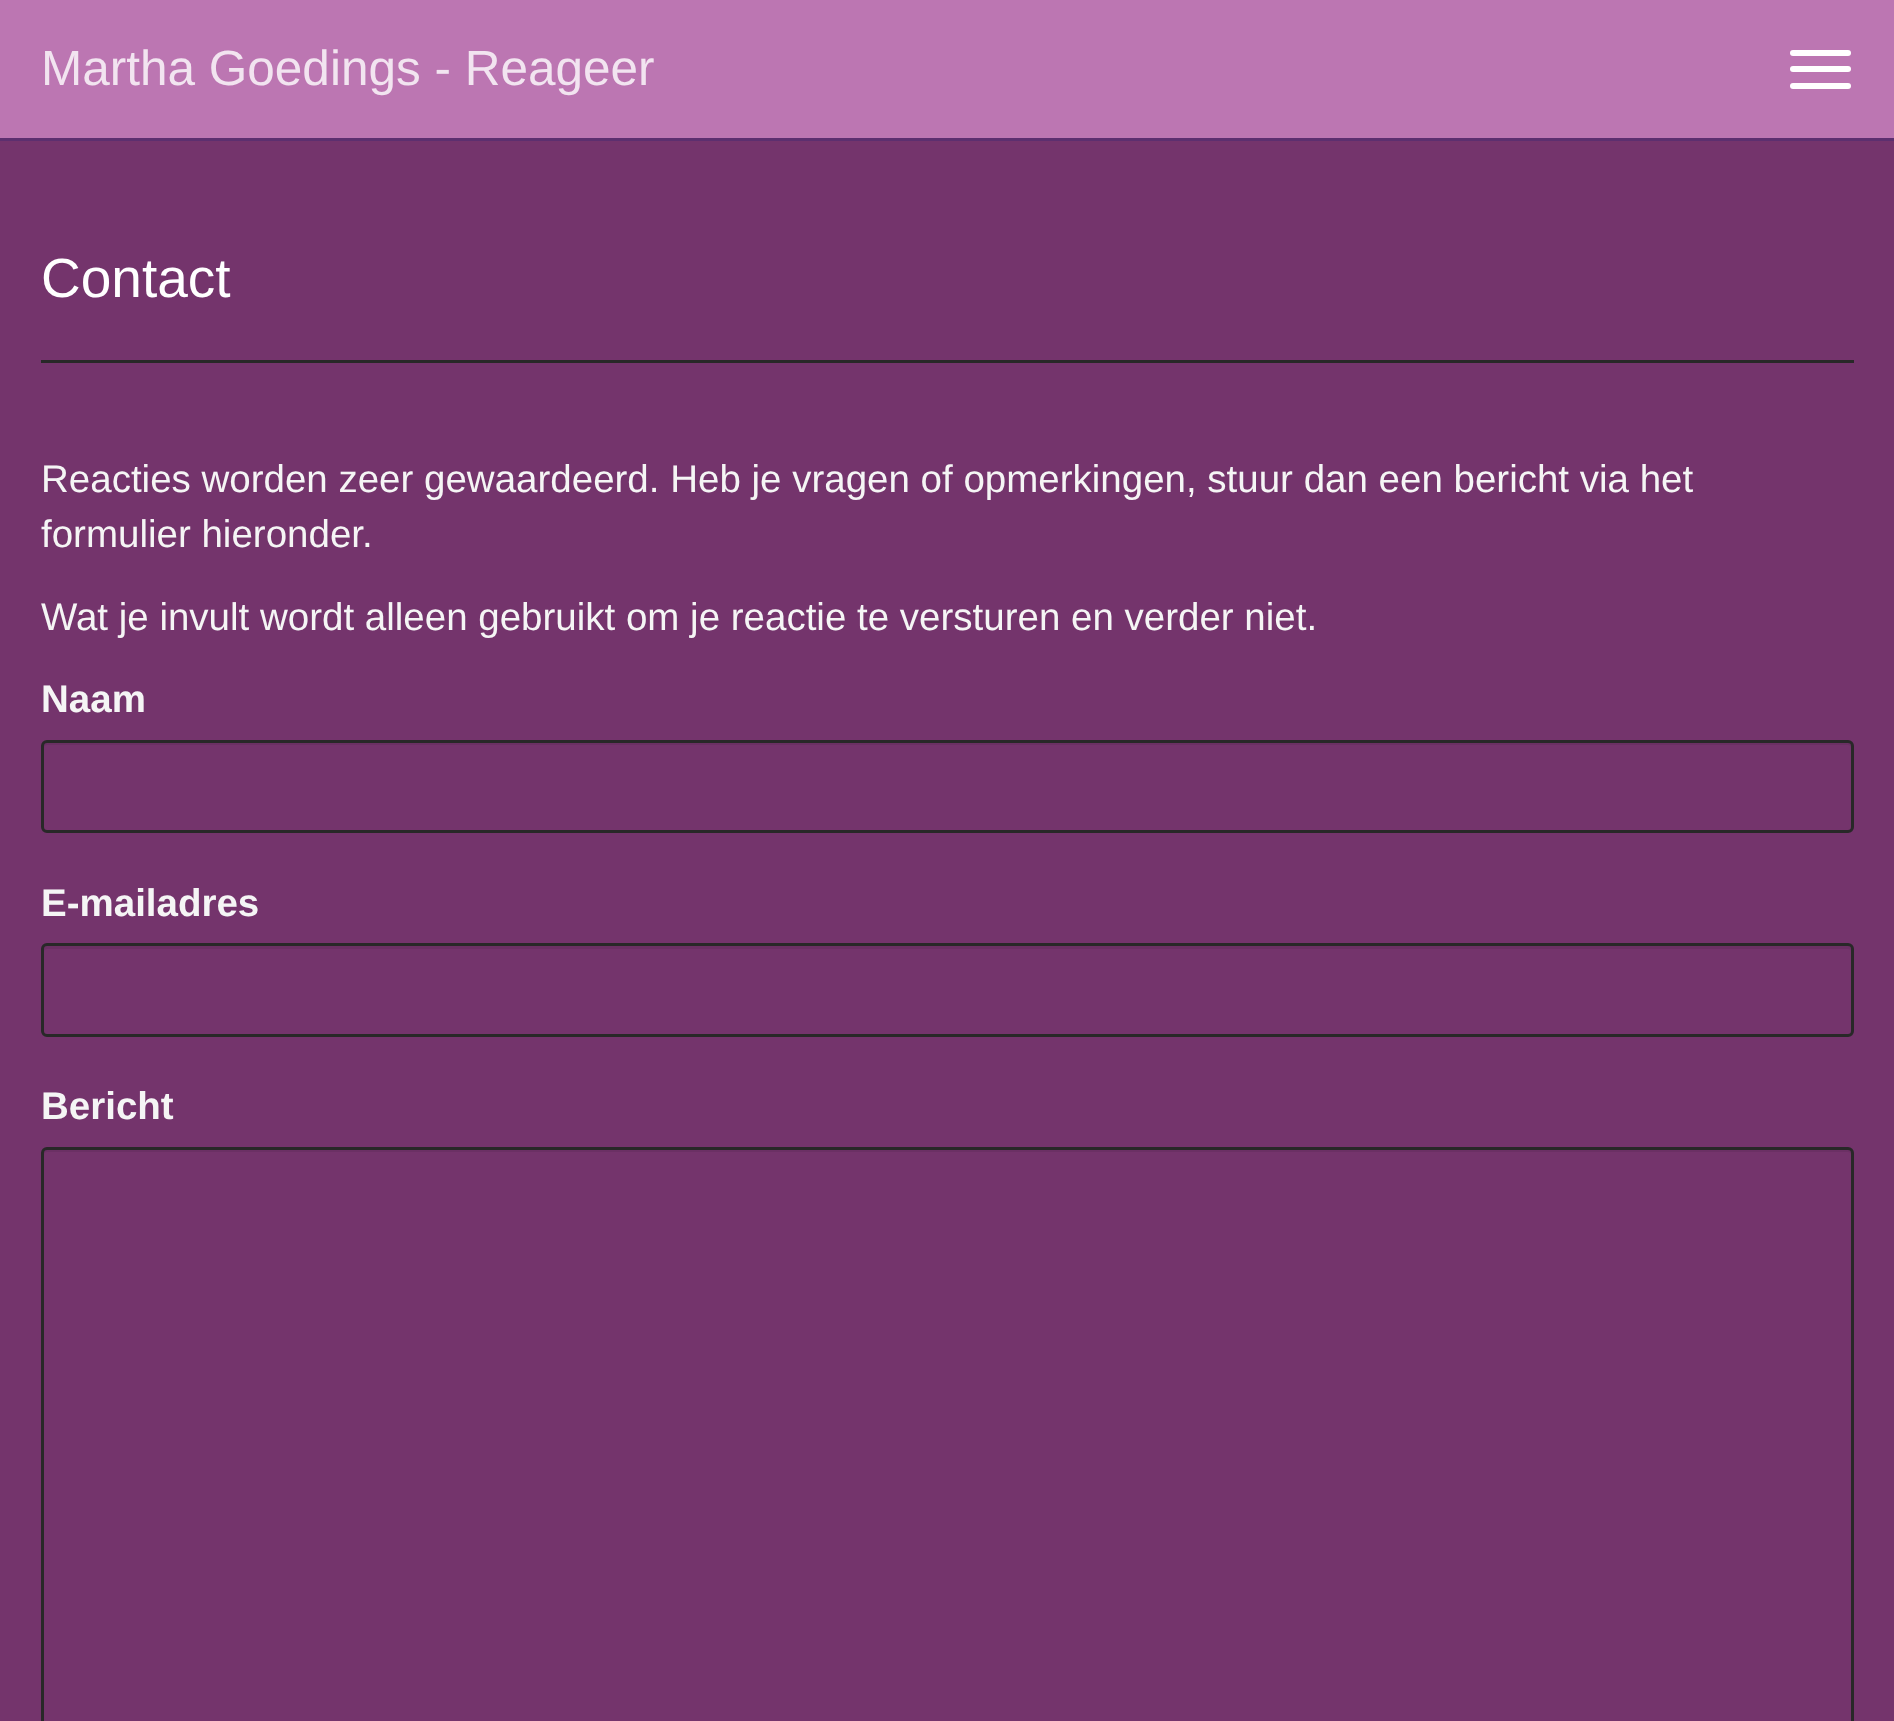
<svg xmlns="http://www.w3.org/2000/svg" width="1894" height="1721">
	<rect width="100%" height="100%" fill="#74346C" />
	<rect x="0" y="0" width="1894" height="138" fill="#BC76B2" />
	<rect x="0" y="138" width="1894" height="3" fill="#5C2F6F" />
	<text x="41" y="85" font-family="Liberation Sans" font-size="49.5" fill="#F2E4F0">Martha Goedings - Reageer</text>
	<rect x="1790" y="50" width="61" height="6" rx="3" fill="#FFFFFF" />
	<rect x="1790" y="66" width="61" height="6" rx="3" fill="#FFFFFF" />
	<rect x="1790" y="83" width="61" height="6" rx="3" fill="#FFFFFF" />
	<rect x="41" y="360" width="1813" height="3" fill="#282828" />
	<text x="41" y="297" font-family="Liberation Sans" font-size="55" fill="#FFFFFF">Contact</text>
	<g font-family="Liberation Sans" font-size="38.5" fill="#F5F5F5">
		<text x="41" y="492">Reacties worden zeer gewaardeerd. Heb je vragen of opmerkingen, stuur dan een bericht via het</text>
		<text x="41" y="547">formulier hieronder.</text>
		<text x="41" y="630">Wat je invult wordt alleen gebruikt om je reactie te versturen en verder niet.</text>
	</g>
	<text x="41" y="712" font-family="Liberation Sans" font-size="38.5" font-weight="700" fill="#F5F5F5">Naam</text>
	<path d="M47 745H1848C1850 745 1851 746 1851 748V746C1851 744 1850 743 1848 743H47C45 743 44 744 44 746V748C44 746 45 745 47 745Z" fill="#6B3064" />
	<rect x="42.5" y="741.5" width="1810" height="90" rx="4.5" fill="none" stroke="#282828" stroke-width="3" />
	<text x="41" y="916" font-family="Liberation Sans" font-size="38.5" font-weight="700" fill="#F5F5F5">E-mailadres</text>
	<path d="M47 949H1848C1850 949 1851 950 1851 952C1851 950 1851 946 1848 946H47C44 946 44 950 44 952C44 950 45 949 47 949Z" fill="#6B3064" />
	<rect x="42.5" y="944.5" width="1810" height="91" rx="4.5" fill="none" stroke="#282828" stroke-width="3" />
	<text x="41" y="1119" font-family="Liberation Sans" font-size="38.5" font-weight="700" fill="#F5F5F5">Bericht</text>
	<path d="M47 1152H1848C1850 1152 1851 1153 1851 1155V1153C1851 1151 1850 1150 1848 1150H47C45 1150 44 1151 44 1153V1155C44 1153 45 1152 47 1152Z" fill="#6B3064" />
	<rect x="42.5" y="1148.5" width="1810" height="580" rx="4.5" fill="none" stroke="#282828" stroke-width="3" />
</svg>
